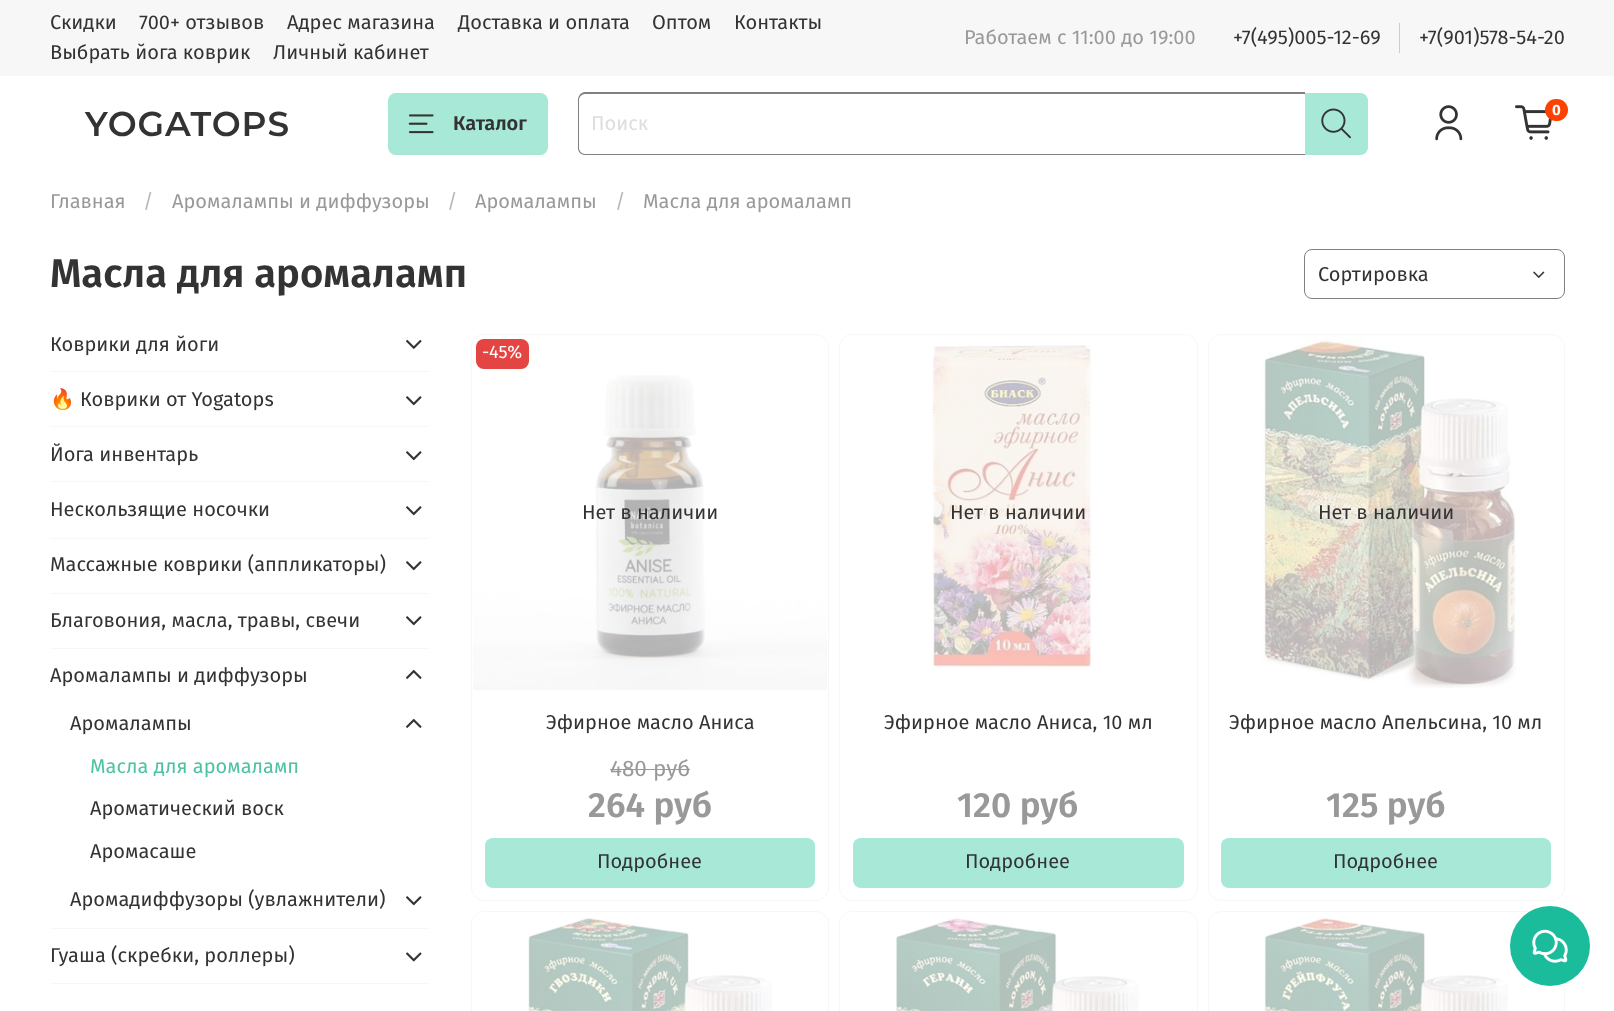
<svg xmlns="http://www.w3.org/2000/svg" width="1614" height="1011">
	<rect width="100%" height="100%" fill="#FFFFFF" />
	<rect x="0" y="0" width="1614" height="76" fill="#F7F7F7" />
	<g font-family="Fira Sans" font-size="20" fill="#333333">
		<text x="50" y="29">Скидки</text>
		<text x="139" y="29">700+ отзывов</text>
		<text x="287" y="29">Адрес магазина</text>
		<text x="458" y="29">Доставка и оплата</text>
		<text x="652" y="29">Оптом</text>
		<text x="734" y="29">Контакты</text>
		<text x="50" y="59">Выбрать йога коврик</text>
		<text x="273" y="59">Личный кабинет</text>
	</g>
	<text x="964" y="44" font-family="Fira Sans" font-size="20" fill="#999999">Работаем с 11:00 до 19:00</text>
	<rect x="1399" y="23" width="1" height="30" fill="#CCCCCC" />
	<g font-family="Fira Sans" font-size="20" fill="#333333">
		<text x="1233" y="44">+7(495)005-12-69</text>
		<text x="1419" y="44">+7(901)578-54-20</text>
	</g>
	<image x="84" y="111" width="204" height="26" href="assets/img1.png" />
	<rect x="388" y="93" width="160" height="62" rx="8" fill="#A7E8D6" />
	<image x="408" y="114" width="26" height="20" href="assets/img2.png" />
	<text x="453" y="130" font-family="Fira Sans" font-size="20" font-weight="600" fill="#333333">Каталог</text>
	<path d="M585 92H1305V155H585C581 155 578 152 578 148V100C578 96 581 92 585 92ZM585 94H1305V154H585C582 154 579 151 579 148V100C579 97 582 94 585 94Z" fill="#808080" fill-rule="evenodd" />
	<text x="591" y="130" font-family="Fira Sans" font-size="20" fill="#DDDDDD">Поиск</text>
	<path d="M1305 93H1360C1364.5 93 1368 96.5 1368 101V147C1368 151.5 1364.5 155 1360 155H1305Z" fill="#A7E8D6" />
	<image x="1321" y="108" width="30" height="31" href="assets/img3.png" />
	<image x="1435" y="105" width="28" height="36" href="assets/img4.png" />
	<image x="1515" y="105" width="37" height="35" href="assets/img5.png" />
	<rect x="1545" y="99" width="23" height="22" rx="11" fill="#FF4100" />
	<text x="1552" y="115" font-family="Fira Sans" font-size="15" font-weight="700" fill="#FFFFFF">0</text>
	<text x="50" y="208" font-family="Fira Sans" font-size="20" fill="#999999">Главная</text>
	<text x="143" y="208" font-family="Fira Sans" font-size="20" fill="#B8B8B8">/</text>
	<text x="172" y="208" font-family="Fira Sans" font-size="20" fill="#999999">Аромалампы и диффузоры</text>
	<text x="447" y="208" font-family="Fira Sans" font-size="20" fill="#B8B8B8">/</text>
	<text x="475" y="208" font-family="Fira Sans" font-size="20" fill="#999999">Аромалампы</text>
	<text x="615" y="208" font-family="Fira Sans" font-size="20" fill="#B8B8B8">/</text>
	<text x="643" y="208" font-family="Fira Sans" font-size="20" fill="#999999">Масла для аромаламп</text>
	<text x="50" y="287" font-family="Fira Sans" font-size="40" font-weight="600" fill="#333333">Масла для аромаламп</text>
	<rect x="1304.5" y="249.5" width="260" height="49" rx="7.5" fill="none" stroke="#808080" />
	<text x="1318" y="281" font-family="Fira Sans" font-size="20" fill="#333333">Сортировка</text>
	<image x="1533" y="271" width="12" height="7" href="assets/img6.png" />
	<rect x="50" y="371" width="379" height="1" fill="#F7F7F7" />
	<text x="50" y="351" font-family="Fira Sans" font-size="20" fill="#333333">Коврики для йоги</text>
	<image x="406" y="339" width="16" height="10" href="assets/img7.png" />
	<rect x="50" y="426" width="379" height="1" fill="#F7F7F7" />
	<text x="50" y="406" font-family="Noto Color Emoji" font-size="20" fill="#333333">🔥</text>
	<text x="80" y="406" font-family="Fira Sans" font-size="20" fill="#333333">Коврики от Yogatops</text>
	<image x="406" y="396" width="16" height="10" href="assets/img8.png" />
	<rect x="50" y="481" width="379" height="1" fill="#F7F7F7" />
	<text x="50" y="461" font-family="Fira Sans" font-size="20" fill="#333333">Йога инвентарь</text>
	<image x="406" y="451" width="16" height="10" href="assets/img8.png" />
	<rect x="50" y="538" width="379" height="1" fill="#F7F7F7" />
	<text x="50" y="516" font-family="Fira Sans" font-size="20" fill="#333333">Нескользящие носочки</text>
	<image x="406" y="506" width="16" height="10" href="assets/img8.png" />
	<rect x="50" y="593" width="379" height="1" fill="#F7F7F7" />
	<text x="50" y="571" font-family="Fira Sans" font-size="20" fill="#333333">Массажные коврики (аппликаторы)</text>
	<image x="406" y="561" width="16" height="10" href="assets/img8.png" />
	<rect x="50" y="648" width="379" height="1" fill="#F7F7F7" />
	<text x="50" y="627" font-family="Fira Sans" font-size="20" fill="#333333">Благовония, масла, травы, свечи</text>
	<image x="406" y="616" width="16" height="10" href="assets/img8.png" />
	<rect x="50" y="928" width="379" height="1" fill="#F7F7F7" />
	<text x="50" y="682" font-family="Fira Sans" font-size="20" fill="#333333">Аромалампы и диффузоры</text>
	<image x="406" y="669" width="16" height="10" href="assets/img9.png" />
	<text x="70" y="730" font-family="Fira Sans" font-size="20" fill="#333333">Аромалампы</text>
	<image x="406" y="718" width="16" height="10" href="assets/img10.png" />
	<text x="90" y="773" font-family="Fira Sans" font-size="20" fill="#4EC2A2">Масла для аромаламп</text>
	<g font-family="Fira Sans" font-size="20" fill="#333333">
		<text x="90" y="815">Ароматический воск</text>
		<text x="90" y="858">Аромасаше</text>
		<text x="70" y="906">Аромадиффузоры (увлажнители)</text>
	</g>
	<image x="406" y="896" width="16" height="10" href="assets/img8.png" />
	<rect x="50" y="983" width="379" height="1" fill="#F7F7F7" />
	<text x="50" y="962" font-family="Fira Sans" font-size="20" fill="#333333">Гуаша (скребки, роллеры)</text>
	<image x="406" y="952" width="16" height="10" href="assets/img11.png" />
	<rect x="471.5" y="334.5" width="357" height="566" rx="12.5" fill="none" stroke="#F7F7F7" />
	<rect x="476" y="339" width="53" height="30" rx="8" fill="#E44542" />
	<text x="482" y="358" font-family="Fira Sans" font-size="18" fill="#FFFFFF">-45%</text>
	<image x="473" y="375" width="354" height="315" href="assets/img12.png" />
	<g font-family="Fira Sans" font-size="20" fill="#333333">
		<text x="582" y="519">Нет в наличии</text>
		<text x="546" y="729">Эфирное масло Аниса</text>
	</g>
	<text x="610" y="776" font-family="Fira Sans" font-size="22.5" fill="#999999">480 руб</text>
	<rect x="610" y="769" width="80" height="1" fill="#999999" />
	<text x="588" y="817" font-family="Fira Sans" font-size="35" font-weight="600" fill="#999999">264 руб</text>
	<rect x="485" y="838" width="330" height="50" rx="8" fill="#A7E8D6" />
	<text x="597" y="868" font-family="Fira Sans" font-size="20" fill="#333333">Подробнее</text>
	<rect x="839.5" y="334.5" width="358" height="566" rx="12.5" fill="none" stroke="#F7F7F7" />
	<image x="932" y="345" width="160" height="322" href="assets/img13.png" />
	<g font-family="Fira Sans" font-size="20" fill="#333333">
		<text x="950" y="519">Нет в наличии</text>
		<text x="884" y="729">Эфирное масло Аниса, 10 мл</text>
	</g>
	<text x="957" y="817" font-family="Fira Sans" font-size="35" font-weight="600" fill="#999999">120 руб</text>
	<rect x="853" y="838" width="331" height="50" rx="8" fill="#A7E8D6" />
	<text x="965" y="868" font-family="Fira Sans" font-size="20" fill="#333333">Подробнее</text>
	<rect x="1208.5" y="334.5" width="356" height="566" rx="12.5" fill="none" stroke="#F7F7F7" />
	<image x="1262" y="335" width="254" height="353" href="assets/img14.png" />
	<g font-family="Fira Sans" font-size="20" fill="#333333">
		<text x="1318" y="519">Нет в наличии</text>
		<text x="1229" y="729">Эфирное масло Апельсина, 10 мл</text>
	</g>
	<text x="1326" y="817" font-family="Fira Sans" font-size="35" font-weight="600" fill="#999999">125 руб</text>
	<rect x="1221" y="838" width="330" height="50" rx="8" fill="#A7E8D6" />
	<text x="1333" y="868" font-family="Fira Sans" font-size="20" fill="#333333">Подробнее</text>
	<rect x="471.5" y="911.5" width="357" height="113" rx="12.5" fill="none" stroke="#F7F7F7" />
	<image x="528" y="918" width="244" height="93" href="assets/img15.png" />
	<rect x="839.5" y="911.5" width="358" height="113" rx="12.5" fill="none" stroke="#F7F7F7" />
	<image x="896" y="918" width="243" height="93" href="assets/img16.png" />
	<rect x="1208.5" y="911.5" width="356" height="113" rx="12.5" fill="none" stroke="#F7F7F7" />
	<image x="1264" y="918" width="244" height="93" href="assets/img17.png" />
	<circle cx="1550" cy="946" r="40" fill="#1ABC9C" />
	<image x="1532" y="929" width="36" height="34" href="assets/img18.png" />
</svg>
